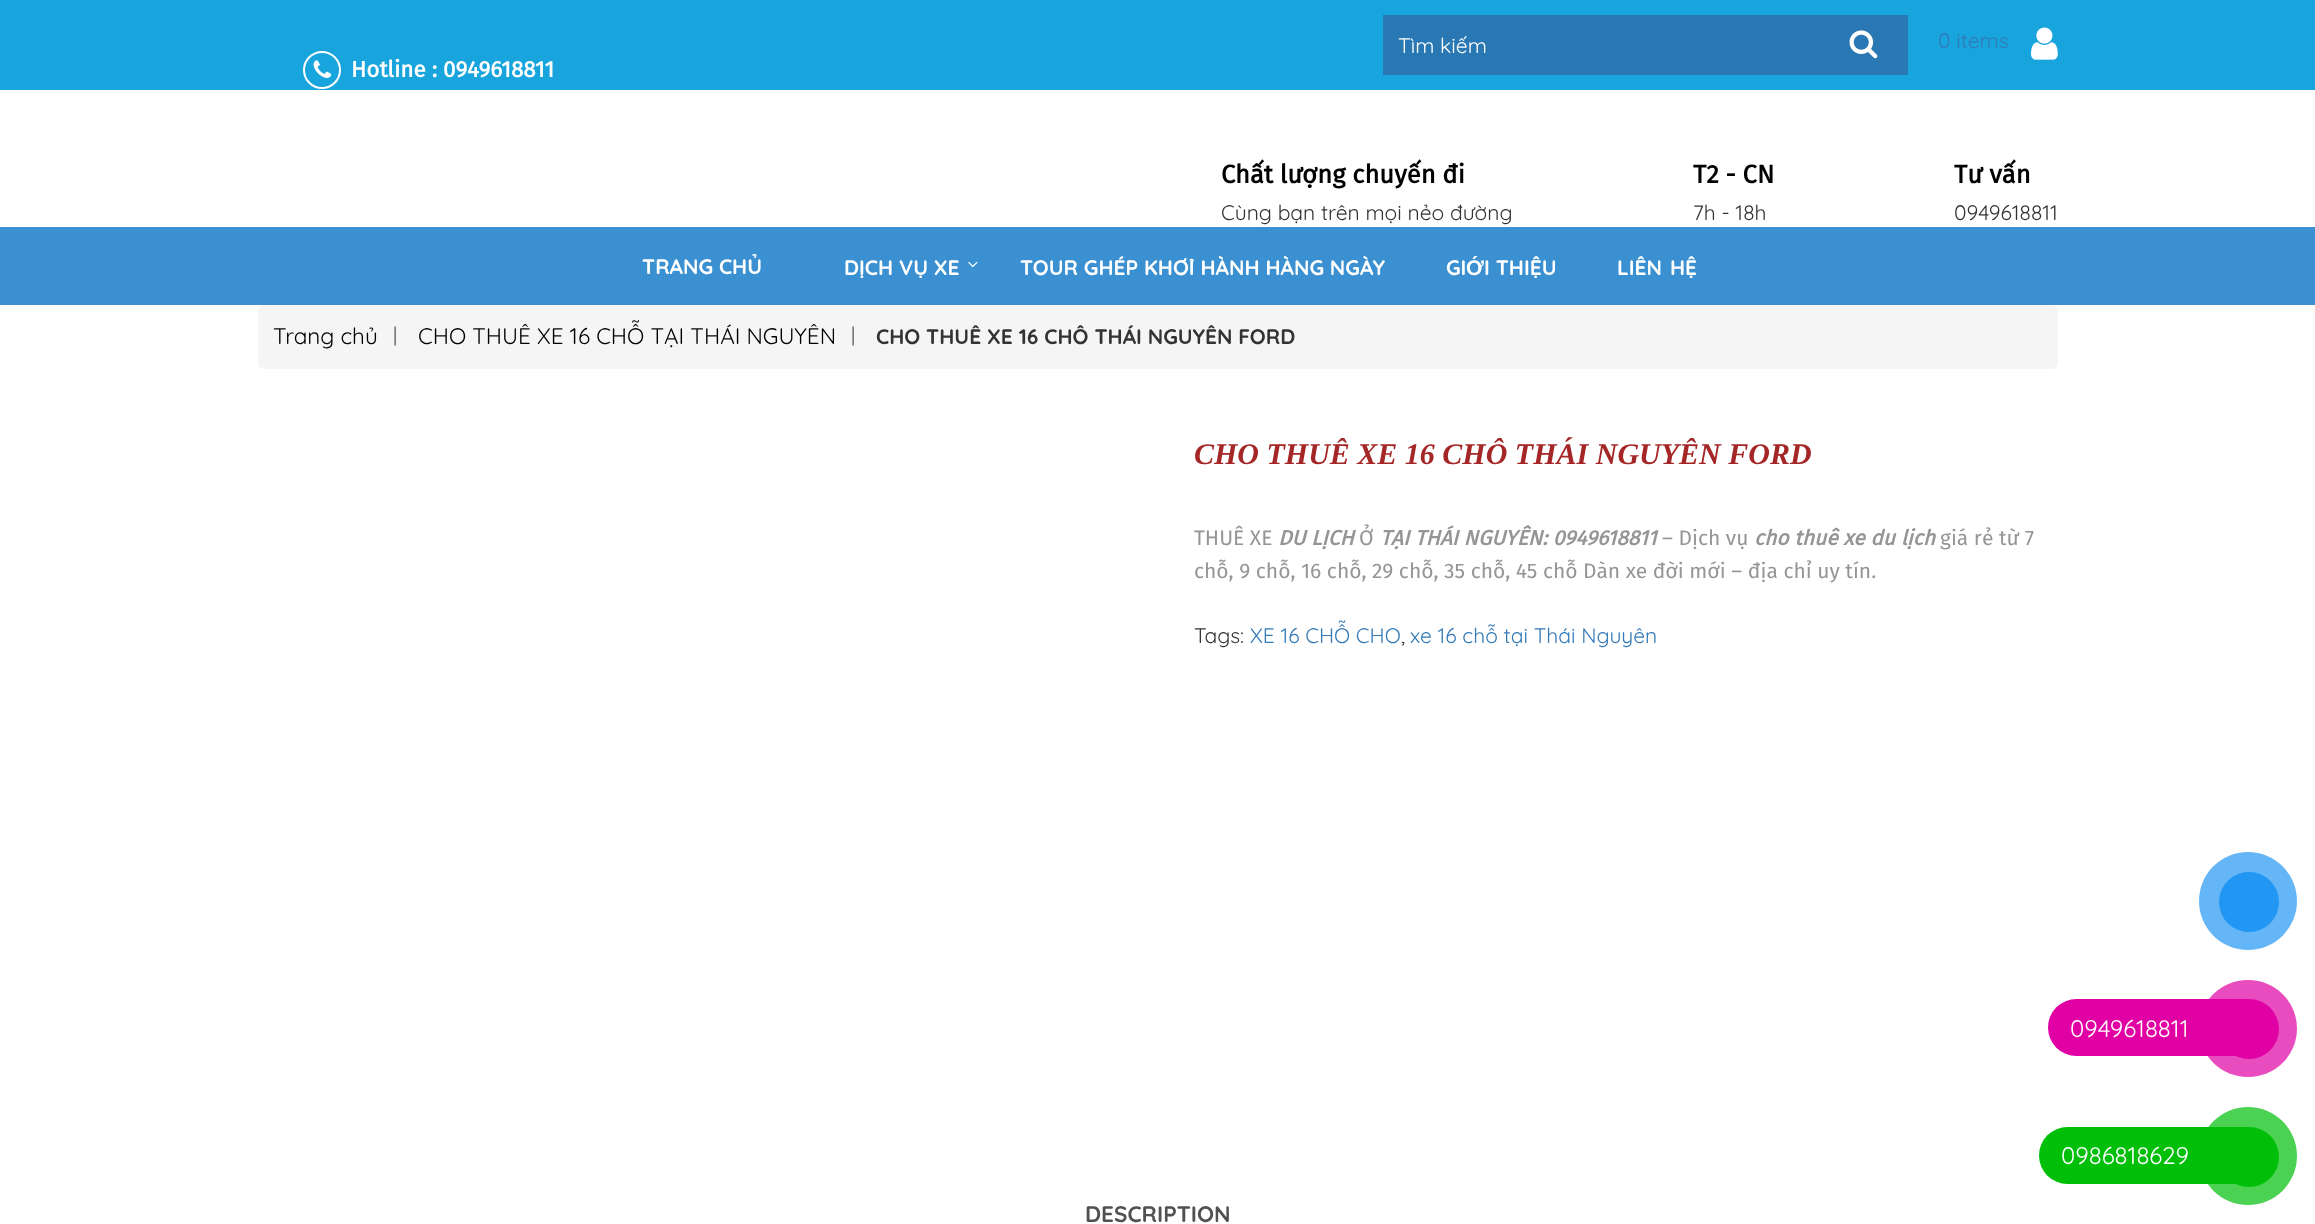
<svg xmlns="http://www.w3.org/2000/svg" width="2315" height="1224">
	<rect width="100%" height="100%" fill="#FFFFFF" />
	<rect x="0" y="0" width="2315" height="90" fill="#18A4DD" />
	<rect x="1383" y="15" width="525" height="60" fill="#2978B3" />
	<text x="1398" y="53" font-family="Quicksand" font-size="21" fill="#FFFFFF">Tìm kiếm</text>
	<image x="1849" y="30" width="29" height="29" href="assets/img1.png" />
	<text x="1938" y="48" font-family="Quicksand" font-size="21" fill="#337AB7">0 items</text>
	<image x="2031" y="27" width="27" height="33" href="assets/img2.png" />
	<circle cx="322" cy="70" r="18" fill="none" stroke="#FFFFFF" stroke-width="2" />
	<image x="313" y="60" width="19" height="18" href="assets/img3.png" />
	<text x="351" y="77" font-family="Fira Sans" font-size="22.5" font-weight="700" fill="#FFFFFF">Hotline : 0949618811</text>
	<text x="1221" y="183" font-family="Fira Sans" font-size="25.5" font-weight="700" fill="#000000">Chất lượng chuyến đi</text>
	<text x="1221" y="220" font-family="Quicksand" font-size="21" fill="#333333">Cùng bạn trên mọi nẻo đường</text>
	<text x="1693" y="183" font-family="Fira Sans" font-size="25.5" font-weight="700" fill="#000000">T2 - CN</text>
	<text x="1693" y="220" font-family="Quicksand" font-size="21" fill="#333333">7h - 18h</text>
	<text x="1954" y="183" font-family="Fira Sans" font-size="25.5" font-weight="700" fill="#000000">Tư vấn</text>
	<text x="1954" y="220" font-family="Quicksand" font-size="21" fill="#333333">0949618811</text>
	<rect x="0" y="227" width="2315" height="78" fill="#3A90D0" />
	<g font-family="Quicksand" font-size="21" font-weight="700" fill="#FFFFFF">
		<text x="642" y="274">TRANG CHỦ</text>
		<text x="844" y="275">DỊCH VỤ XE</text>
	</g>
	<image x="968" y="261" width="10" height="7" href="assets/img4.png" />
	<g font-family="Quicksand" font-size="21" font-weight="700" fill="#FFFFFF">
		<text x="1020" y="275">TOUR GHÉP KHỞI HÀNH HÀNG NGÀY</text>
		<text x="1446" y="275">GI</text>
	</g>
	<text x="1466" y="275" font-family="Liberation Sans" font-size="21" font-weight="700" fill="#FFFFFF">Ớ</text>
	<g font-family="Quicksand" font-size="21" font-weight="700" fill="#FFFFFF">
		<text x="1484" y="275">I THIỆU</text>
		<text x="1617" y="275" word-spacing="2">LIÊN HỆ</text>
	</g>
	<rect x="258" y="305" width="1800" height="64" rx="6" fill="#F5F5F5" />
	<text x="273" y="344" font-family="Quicksand" font-size="22.5" fill="#000000">Trang chủ</text>
	<text x="393" y="341" font-family="Liberation Serif" font-size="21" fill="#333333">|</text>
	<text x="418" y="344" font-family="Quicksand" font-size="22.5" fill="#000000">CHO THUÊ XE 16 CHỖ TẠI THÁI NGUYÊN</text>
	<text x="851" y="341" font-family="Liberation Serif" font-size="21" fill="#333333">|</text>
	<text x="876" y="344" font-family="Quicksand" font-size="21" font-weight="700" fill="#333333">CHO THUÊ XE 16 CHÔ THÁI NGUYÊN FORD</text>
	<text x="1194" y="464" font-family="Tinos" font-size="30" font-weight="700" font-style="italic" fill="#A52626">CHO THUÊ XE 16 CHÔ THÁI NGUYÊN FORD</text>
	<text x="1194" y="545" font-family="Fira Sans" font-size="21" fill="#959595">THUÊ XE</text>
	<text x="1278" y="545" font-family="Fira Sans" font-size="21" font-weight="700" font-style="italic" fill="#959595">DU LỊCH</text>
	<text x="1359" y="545" font-family="Fira Sans" font-size="21" fill="#959595">Ở</text>
	<text x="1380" y="545" font-family="Fira Sans" font-size="21" font-weight="700" font-style="italic" fill="#959595">TẠI THÁI NGUYÊN: 0949618811</text>
	<text x="1662" y="545" font-family="Fira Sans" font-size="21" fill="#959595">– Dịch vụ</text>
	<text x="1754" y="545" font-family="Fira Sans" font-size="21" font-weight="700" font-style="italic" fill="#959595">cho thuê xe du lịch</text>
	<g font-family="Fira Sans" font-size="21" fill="#959595">
		<text x="1940" y="545">giá rẻ từ 7</text>
		<text x="1194" y="578">chỗ, 9 chỗ, 16 chỗ, 29 chỗ, 35 chỗ, 45 chỗ Dàn xe đời mới – địa chỉ uy tín.</text>
	</g>
	<text x="1194" y="643" font-family="Quicksand" font-size="21" fill="#333333">Tags:</text>
	<text x="1250" y="643" font-family="Quicksand" font-size="21" fill="#337AB7">XE 16 CHỖ CHO</text>
	<text x="1401" y="643" font-family="Quicksand" font-size="21" fill="#333333">,</text>
	<text x="1410" y="643" font-family="Quicksand" font-size="21" fill="#337AB7">xe 16 chỗ tại Thái Nguyên</text>
	<text x="1085" y="1222" font-family="Quicksand" font-size="22.5" font-weight="700" fill="#515151">DESCRIPTION</text>
	<circle cx="2248" cy="901" r="49" fill="#64B6F7" />
	<circle cx="2249" cy="902" r="30" fill="#2196F3" />
	<rect x="2048" y="999" width="223" height="57" rx="28.5" fill="#E000A4" />
	<text x="2070" y="1037" font-family="Quicksand" font-size="24" fill="#FFFFFF">0949618811</text>
	<rect x="2199" y="980" width="98" height="97" rx="48.5" fill="#E000A4" fill-opacity="0.7" />
	<circle cx="2249" cy="1029" r="30" fill="#E000A4" />
	<rect x="2039" y="1127" width="232" height="57" rx="28.5" fill="#00BF09" />
	<text x="2061" y="1164" font-family="Quicksand" font-size="24" fill="#FFFFFF">0986818629</text>
	<circle cx="2248" cy="1156" r="49" fill="#00BF09" fill-opacity="0.7" />
	<circle cx="2249" cy="1157" r="30" fill="#00BF09" />
</svg>
